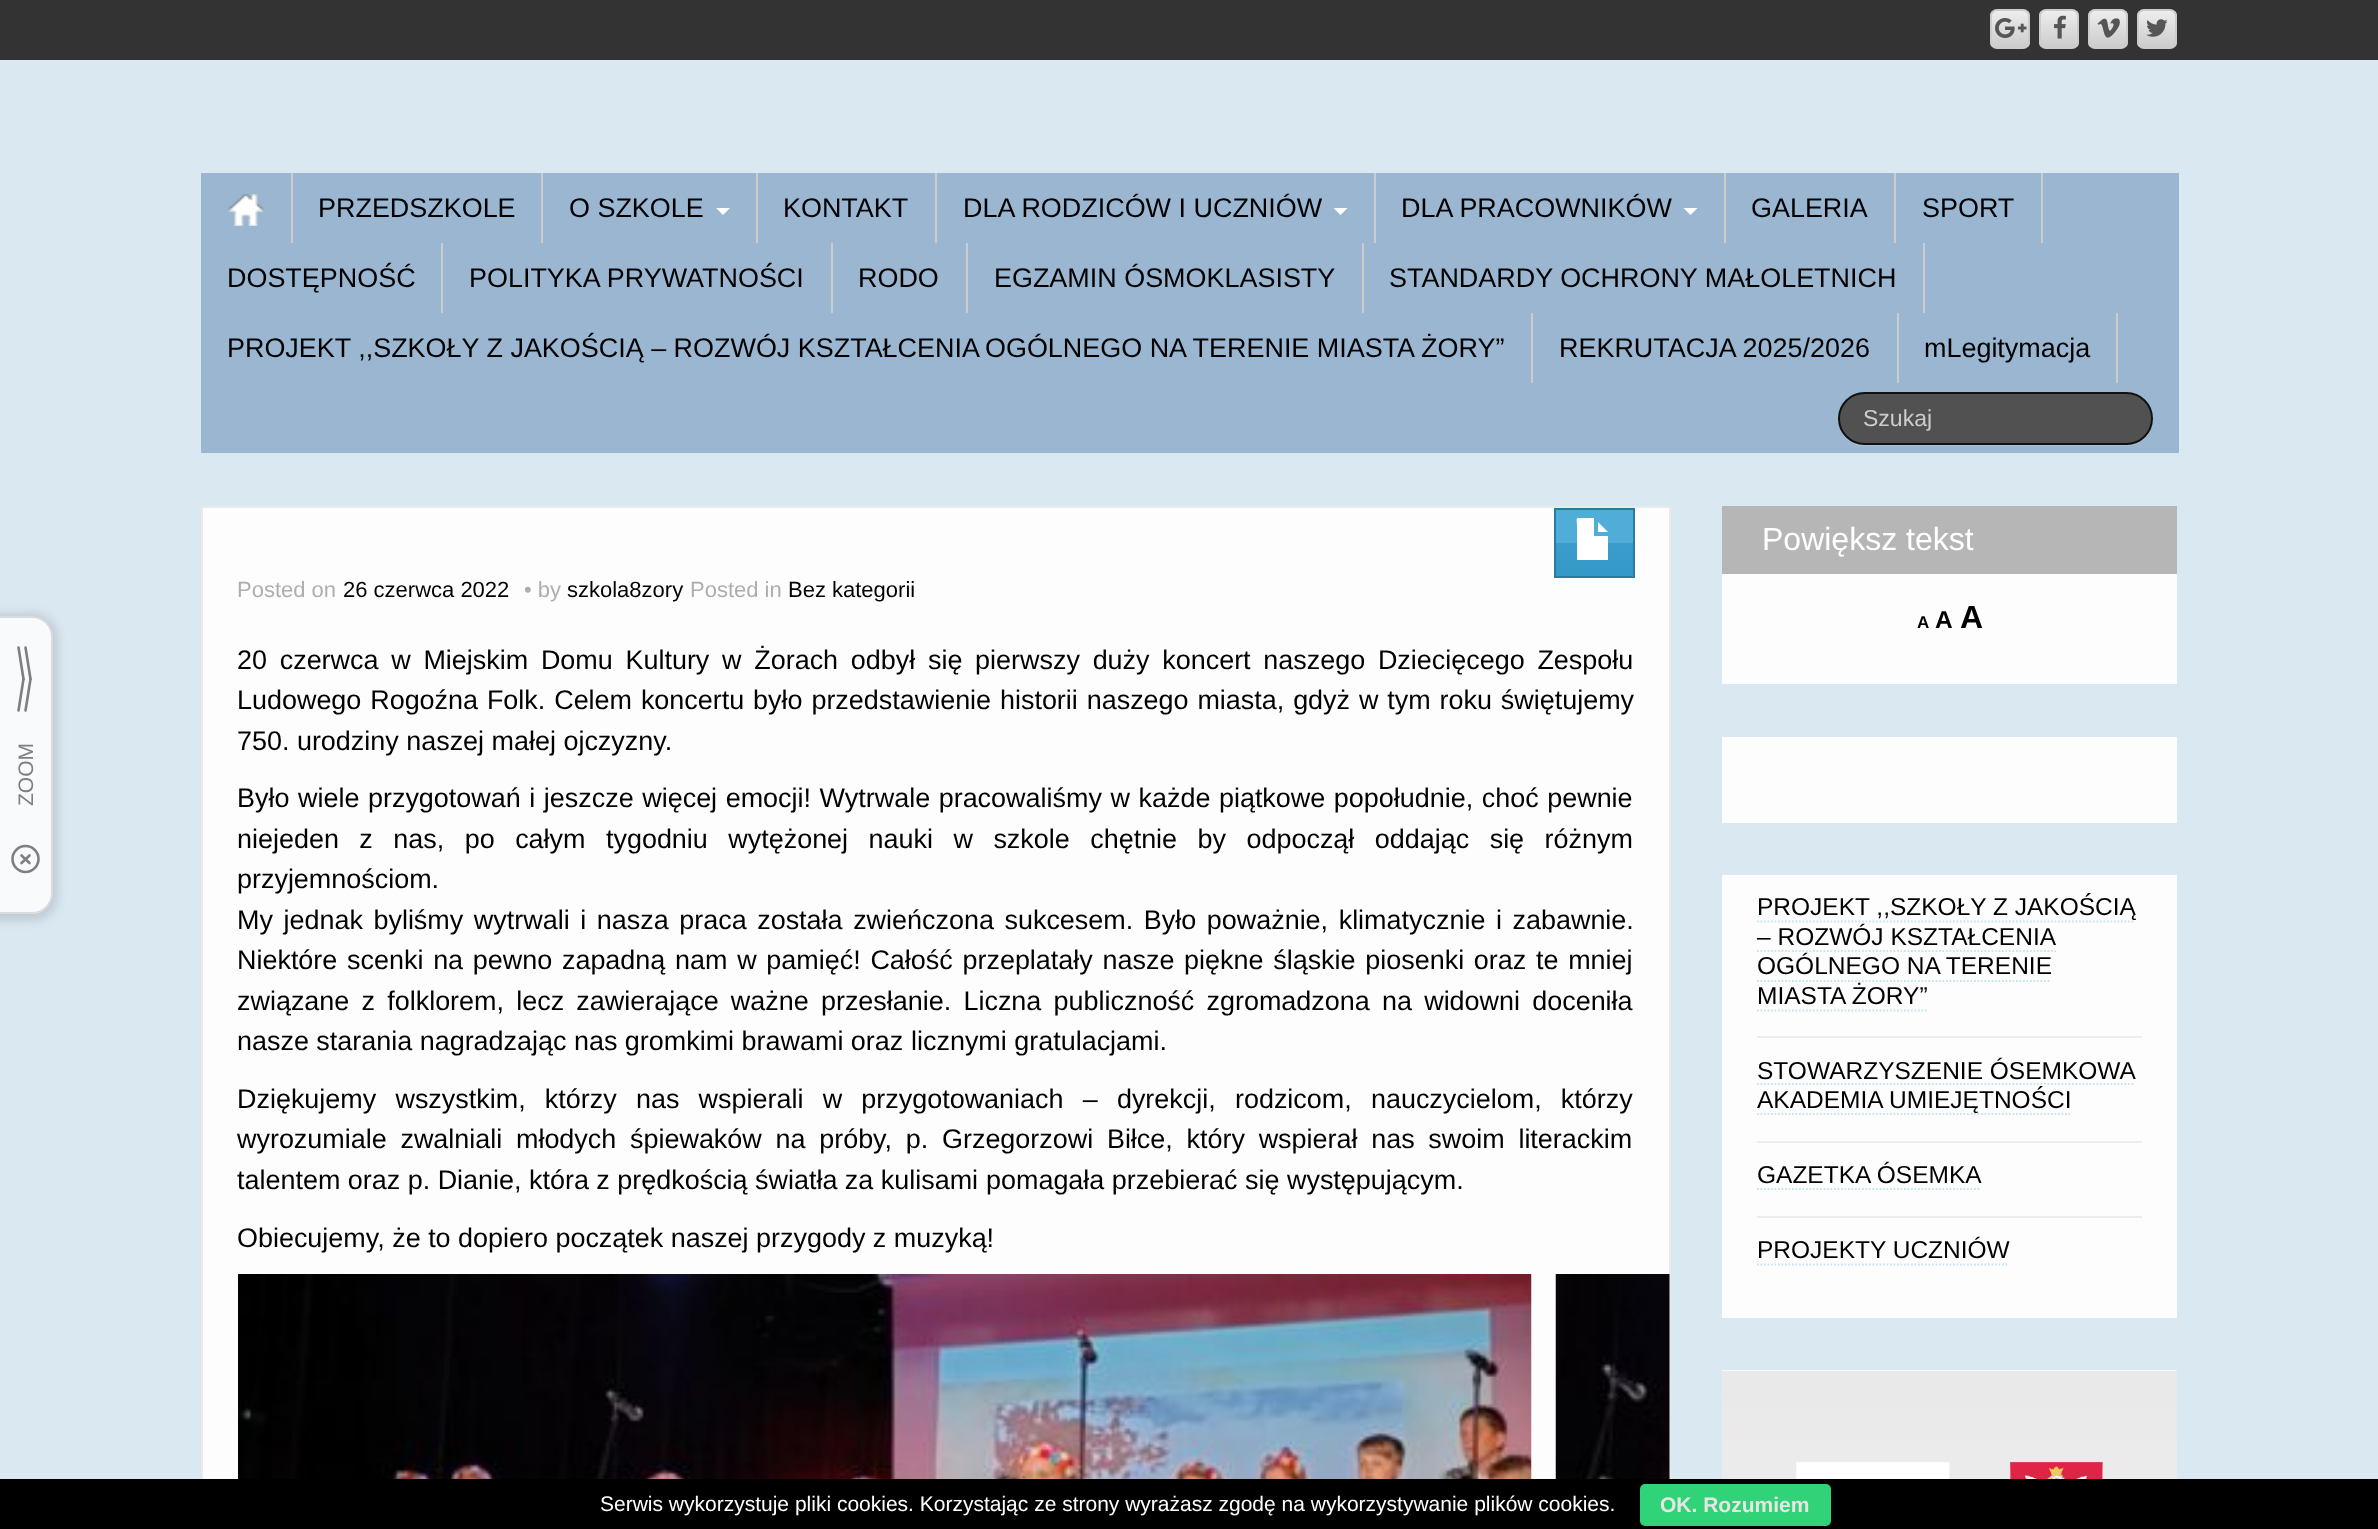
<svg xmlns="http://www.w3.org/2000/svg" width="2378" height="1529">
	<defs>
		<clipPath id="clip1"><rect x="1990" y="9" width="40" height="40" rx="7" /></clipPath>
		<linearGradient id="g1" gradientUnits="userSpaceOnUse" x1="2010" y1="10" x2="2010" y2="47"><stop offset="0" stop-color="#EEEEEE" /><stop offset="1" stop-color="#CCCCCC" /></linearGradient>
		<clipPath id="clip2"><rect x="2039" y="9" width="40" height="40" rx="7" /></clipPath>
		<linearGradient id="g2" gradientUnits="userSpaceOnUse" x1="2059" y1="10" x2="2059" y2="47"><stop offset="0" stop-color="#EEEEEE" /><stop offset="1" stop-color="#CCCCCC" /></linearGradient>
		<clipPath id="clip3"><rect x="2088" y="9" width="40" height="40" rx="7" /></clipPath>
		<linearGradient id="g3" gradientUnits="userSpaceOnUse" x1="2108" y1="10" x2="2108" y2="47"><stop offset="0" stop-color="#EEEEEE" /><stop offset="1" stop-color="#CCCCCC" /></linearGradient>
		<clipPath id="clip4"><rect x="2137" y="9" width="40" height="40" rx="7" /></clipPath>
		<linearGradient id="g4" gradientUnits="userSpaceOnUse" x1="2157" y1="10" x2="2157" y2="47"><stop offset="0" stop-color="#EEEEEE" /><stop offset="1" stop-color="#CCCCCC" /></linearGradient>
		<linearGradient id="g5" gradientUnits="userSpaceOnUse" x1="1594" y1="509" x2="1594" y2="576"><stop offset="0" stop-color="#6FB7D6" /><stop offset="0.01" stop-color="#4FADD8" /><stop offset="0.5" stop-color="#4FADD8" /><stop offset="0.51" stop-color="#399CCA" /><stop offset="1" stop-color="#3599C7" /></linearGradient>
	</defs>
	<rect width="100%" height="100%" fill="#DAE8F2" />
	<rect x="0" y="0" width="2378" height="60" fill="#333333" />
	<g clip-path="url(#clip1)">
		<rect x="1990" y="11" width="40" height="36" fill="url(#g1)" />
	</g>
	<rect x="1991" y="10" width="38" height="38" rx="6" fill="none" stroke="#CCCCCC" stroke-width="2" />
	<image x="1995" y="18" width="32" height="20" href="assets/img1.png" />
	<g clip-path="url(#clip2)">
		<rect x="2039" y="11" width="40" height="36" fill="url(#g2)" />
	</g>
	<rect x="2040" y="10" width="38" height="38" rx="6" fill="none" stroke="#CCCCCC" stroke-width="2" />
	<image x="2054" y="15" width="12" height="24" href="assets/img2.png" />
	<g clip-path="url(#clip3)">
		<rect x="2088" y="11" width="40" height="36" fill="url(#g3)" />
	</g>
	<rect x="2089" y="10" width="38" height="38" rx="6" fill="none" stroke="#CCCCCC" stroke-width="2" />
	<image x="2097" y="18" width="23" height="20" href="assets/img3.png" />
	<g clip-path="url(#clip4)">
		<rect x="2137" y="11" width="40" height="36" fill="url(#g4)" />
	</g>
	<rect x="2138" y="10" width="38" height="38" rx="6" fill="none" stroke="#CCCCCC" stroke-width="2" />
	<image x="2146" y="19" width="22" height="18" href="assets/img4.png" />
	<rect x="201" y="173" width="1978" height="280" fill="#9AB6D1" />
	<rect x="291" y="173" width="2" height="70" fill="#CCCCCC" />
	<image x="227" y="194" width="37" height="32" href="assets/img5.png" />
	<rect x="541" y="173" width="2" height="70" fill="#CCCCCC" />
	<text x="318" y="217" font-family="Liberation Sans" font-size="26.95" fill="#000000">PRZEDSZKOLE</text>
	<rect x="756" y="173" width="2" height="70" fill="#CCCCCC" />
	<text x="569" y="217" font-family="Liberation Sans" font-size="26.95" fill="#000000">O SZKOLE</text>
	<path d="M716 208H730L723 215Z" fill="#FFFFFF" />
	<rect x="935" y="173" width="2" height="70" fill="#CCCCCC" />
	<text x="783" y="217" font-family="Liberation Sans" font-size="26.95" fill="#000000">KONTAKT</text>
	<rect x="1374" y="173" width="2" height="70" fill="#CCCCCC" />
	<text x="963" y="217" font-family="Liberation Sans" font-size="26.95" fill="#000000">DLA RODZICÓW I UCZNIÓW</text>
	<path d="M1333.5 208H1347.5L1340.5 215Z" fill="#FFFFFF" />
	<rect x="1724" y="173" width="2" height="70" fill="#CCCCCC" />
	<text x="1401" y="217" font-family="Liberation Sans" font-size="26.95" fill="#000000">DLA PRACOWNIKÓW</text>
	<path d="M1683.5 208H1697.5L1690.5 215Z" fill="#FFFFFF" />
	<rect x="1894" y="173" width="2" height="70" fill="#CCCCCC" />
	<text x="1751" y="217" font-family="Liberation Sans" font-size="26.95" fill="#000000">GALERIA</text>
	<rect x="2041" y="173" width="2" height="70" fill="#CCCCCC" />
	<text x="1922" y="217" font-family="Liberation Sans" font-size="26.95" fill="#000000">SPORT</text>
	<rect x="441" y="243" width="2" height="70" fill="#CCCCCC" />
	<text x="227" y="287" font-family="Liberation Sans" font-size="26.95" fill="#000000">DOSTĘPNOŚĆ</text>
	<rect x="831" y="243" width="2" height="70" fill="#CCCCCC" />
	<text x="469" y="287" font-family="Liberation Sans" font-size="26.95" fill="#000000">POLITYKA PRYWATNOŚCI</text>
	<rect x="966" y="243" width="2" height="70" fill="#CCCCCC" />
	<text x="858" y="287" font-family="Liberation Sans" font-size="26.95" fill="#000000">RODO</text>
	<rect x="1362" y="243" width="2" height="70" fill="#CCCCCC" />
	<text x="994" y="287" font-family="Liberation Sans" font-size="26.95" fill="#000000">EGZAMIN ÓSMOKLASISTY</text>
	<rect x="1923" y="243" width="2" height="70" fill="#CCCCCC" />
	<text x="1389" y="287" font-family="Liberation Sans" font-size="26.95" fill="#000000">STANDARDY OCHRONY MAŁOLETNICH</text>
	<rect x="1531" y="313" width="2" height="70" fill="#CCCCCC" />
	<g font-family="Liberation Sans" font-size="26.95" fill="#000000">
		<text x="227" y="357">PROJEKT ,,SZKOŁY Z JAKOŚCIĄ – ROZWÓJ KSZTAŁCENIA</text>
		<text x="985" y="357">OGÓLNEGO NA TERENIE MIASTA ŻORY”</text>
	</g>
	<rect x="1897" y="313" width="2" height="70" fill="#CCCCCC" />
	<text x="1559" y="357" font-family="Liberation Sans" font-size="26.95" fill="#000000">REKRUTACJA 2025/2026</text>
	<rect x="2116" y="313" width="2" height="70" fill="#CCCCCC" />
	<text x="1924" y="357" font-family="Liberation Sans" font-size="26.95" fill="#000000">mLegitymacja</text>
	<path d="M1839 426C1842 438 1852 446 1864 446H2127C2141 446 2153 434 2153 420C2153 417 2153 415 2152 412V418C2152 433 2141 444 2126 444H1864C1852 444 1842 437 1839 426Z" fill="#A9C1D8" />
	<rect x="1839" y="393" width="313" height="51" rx="25.5" fill="#515151" stroke="#111111" stroke-width="2" />
	<text x="1863" y="426" font-family="Liberation Sans" font-size="23" fill="#CCCCCC">Szukaj</text>
	<rect x="-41" y="613" width="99" height="308" rx="26" fill="#2C2E30" fill-opacity="0.15" filter="blur(5px)" />
	<rect x="-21" y="616" width="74" height="298" rx="21" fill="#F8FAFC" />
	<rect x="-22" y="617" width="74" height="296" rx="20" fill="none" stroke="#2C2E30" stroke-opacity="0.15" stroke-width="2" />
	<path d="M25.5 647.5L30.5 679" fill="none" stroke="#7D8082" stroke-width="2.6" stroke-linecap="round" />
	<path d="M30.5 679L25.5 710.5" fill="none" stroke="#7D8082" stroke-width="2.6" stroke-linecap="round" />
	<path d="M23.5 679L18.5 647.5" fill="none" stroke="#7D8082" stroke-width="2.6" stroke-linecap="round" />
	<path d="M18.5 710.5L23.5 679" fill="none" stroke="#7D8082" stroke-width="2.6" stroke-linecap="round" />
	<text x="33" y="806" transform="rotate(-90 33 806)" font-family="Liberation Sans" font-size="21" fill="#7D8082">ZOOM</text>
	<circle cx="25.5" cy="859" r="13" fill="none" stroke="#7D8082" stroke-width="2.6" />
	<path d="M29.5 855.5L21.5 863M21.5 855.5L29.5 863" fill="none" stroke="#7D8082" stroke-width="2.6" stroke-linecap="round" stroke-linejoin="round" />
	<rect x="203" y="508" width="1466" height="971" fill="#FDFDFD" />
	<rect x="202" y="507" width="1468" height="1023" fill="none" stroke="#EAEAEA" stroke-width="2" />
	<rect x="1556" y="510" width="77" height="66" fill="url(#g5)" />
	<rect x="1555" y="509" width="79" height="68" fill="none" stroke="#2B7A9F" stroke-width="2" />
	<path d="M1577 559V526C1577 519 1575 518 1580 518H1594V536H1608V560H1607H1577ZM1598 532V522L1608 532Z" fill="#FFFFFF" />
	<text x="237" y="597" font-family="Liberation Sans" font-size="22" fill="#AFAEAE">Posted on</text>
	<text x="343" y="597" font-family="Liberation Sans" font-size="22" fill="#000000">26 czerwca 2022</text>
	<text x="524" y="597" font-family="Liberation Sans" font-size="22" fill="#AFAEAE">• by</text>
	<text x="567" y="597" font-family="Liberation Sans" font-size="22" fill="#000000">szkola8zory</text>
	<text x="690" y="597" font-family="Liberation Sans" font-size="22" fill="#AFAEAE">Posted in</text>
	<text x="788" y="597" font-family="Liberation Sans" font-size="22" fill="#000000">Bez kategorii</text>
	<g font-family="Liberation Sans" font-size="26.95" fill="#000000">
		<text x="237" y="669" word-spacing="5.25">20 czerwca w Miejskim Domu Kultury w Żorach odbył się pierwszy duży koncert naszego Dziecięcego Zespołu</text>
		<text x="237" y="709" word-spacing="1.4">Ludowego Rogoźna Folk. Celem koncertu było przedstawienie historii naszego miasta, gdyż w tym roku świętujemy</text>
		<text x="237" y="750">750. urodziny naszej małej ojczyzny.</text>
		<text x="237" y="807" word-spacing="1.1">Było wiele przygotowań i jeszcze więcej emocji! Wytrwale pracowaliśmy w każde piątkowe popołudnie, choć pewnie</text>
		<text x="237" y="848" word-spacing="13">niejeden z nas, po całym tygodniu wytężonej nauki w szkole chętnie by odpoczął oddając się różnym</text>
		<text x="237" y="888">przyjemnościom.</text>
		<text x="237" y="929" word-spacing="3.1">My jednak byliśmy wytrwali i nasza praca została zwieńczona sukcesem. Było poważnie, klimatycznie i zabawnie.</text>
		<text x="237" y="969" word-spacing="2.25">Niektóre scenki na pewno zapadną nam w pamięć! Całość przeplatały nasze piękne śląskie piosenki oraz te mniej</text>
		<text x="237" y="1010" word-spacing="4.75">związane z folklorem, lecz zawierające ważne przesłanie. Liczna publiczność zgromadzona na widowni doceniła</text>
		<text x="237" y="1050">nasze starania nagradzając nas gromkimi brawami oraz</text>
		<text x="911" y="1050">licznymi gratulacjami.</text>
		<text x="237" y="1108" word-spacing="11.75">Dziękujemy wszystkim, którzy nas wspierali w przygotowaniach – dyrekcji, rodzicom, nauczycielom, którzy</text>
		<text x="237" y="1148" word-spacing="6.25">wyrozumiale zwalniali młodych śpiewaków na próby, p. Grzegorzowi Biłce, który wspierał nas swoim literackim</text>
		<text x="237" y="1189">talentem oraz p. Dianie, która z prędkością światła za kulisami</text>
		<text x="986" y="1189">pomagała przebierać się występującym.</text>
		<text x="237" y="1247">Obiecujemy, że to dopiero początek naszej przygody z muzyką!</text>
	</g>
	<image x="238" y="1274" width="1294" height="205" href="assets/img6.png" />
	<image x="1555" y="1274" width="115" height="205" href="assets/img7.png" />
	<rect x="1722" y="574" width="455" height="110" fill="#FDFDFD" />
	<rect x="1722" y="506" width="455" height="68" fill="#B6B6B6" />
	<text x="1762" y="550" font-family="Liberation Sans" font-size="32" fill="#FFFFFF">Powiększ tekst</text>
	<text x="1917" y="628" font-family="Liberation Sans" font-size="17" font-weight="700" fill="#000000">A</text>
	<text x="1935" y="628" font-family="Liberation Sans" font-size="24.5" font-weight="700" fill="#000000">A</text>
	<text x="1960" y="628" font-family="Liberation Sans" font-size="32" font-weight="700" fill="#000000">A</text>
	<rect x="1722" y="737" width="455" height="86" fill="#FDFDFD" />
	<rect x="1722" y="875" width="455" height="443" fill="#FDFDFD" />
	<rect x="1757" y="1036" width="385" height="2" fill="#EDEDED" />
	<g font-family="Liberation Sans" font-size="24.5" fill="#000000">
		<text x="1757" y="915">PROJEKT ,,SZKOŁY Z JAKOŚCIĄ</text>
		<text x="1757" y="945">– ROZWÓJ KSZTAŁCENIA</text>
	</g>
	<path d="M1757 921.5H2135" fill="none" stroke="#C5E5F4" stroke-width="1.8" stroke-dasharray="1.75 1.75" />
	<text x="1757" y="974" font-family="Liberation Sans" font-size="24.5" fill="#000000">OGÓLNEGO NA TERENIE</text>
	<path d="M1757 951H2056" fill="none" stroke="#C5E5F4" stroke-width="1.8" stroke-dasharray="1.75 1.75" />
	<text x="1757" y="1004" font-family="Liberation Sans" font-size="24.5" fill="#000000">MIASTA ŻORY”</text>
	<path d="M1757 981H2051" fill="none" stroke="#C5E5F4" stroke-width="1.8" stroke-dasharray="1.75 1.75" />
	<path d="M1757 1010.5H1927" fill="none" stroke="#C5E5F4" stroke-width="1.8" stroke-dasharray="1.75 1.75" />
	<rect x="1757" y="1141" width="385" height="2" fill="#EDEDED" />
	<text x="1757" y="1079" font-family="Liberation Sans" font-size="24.5" fill="#000000">STOWARZYSZENIE ÓSEMKOWA</text>
	<path d="M1757 1084H2135" fill="none" stroke="#C5E5F4" stroke-width="1.8" stroke-dasharray="1.75 1.75" />
	<path d="M1757 1114H2070" fill="none" stroke="#C5E5F4" stroke-width="1.8" stroke-dasharray="1.75 1.75" />
	<text x="1757" y="1108" font-family="Liberation Sans" font-size="24.5" fill="#000000">AKADEMIA UMIEJĘTNOŚCI</text>
	<rect x="1757" y="1216" width="385" height="2" fill="#EDEDED" />
	<text x="1757" y="1183" font-family="Liberation Sans" font-size="24.5" fill="#000000">GAZETKA ÓSEMKA</text>
	<path d="M1757 1189H1981" fill="none" stroke="#C5E5F4" stroke-width="1.8" stroke-dasharray="1.75 1.75" />
	<text x="1757" y="1258" font-family="Liberation Sans" font-size="24.5" fill="#000000">PROJEKTY UCZNIÓW</text>
	<path d="M1757 1264.5H2009" fill="none" stroke="#C5E5F4" stroke-width="1.8" stroke-dasharray="1.75 1.75" />
	<rect x="1722" y="1370" width="455" height="1" fill="#FDFDFD" />
	<image x="1722" y="1370" width="455" height="109" href="assets/img8.png" />
	<rect x="0" y="1479" width="2378" height="50" fill="#000000" />
	<text x="600" y="1511" font-family="Liberation Sans" font-size="21" fill="#FFFFFF">Serwis wykorzystuje pliki cookies. Korzystając ze strony wyrażasz zgodę na wykorzystywanie plików cookies.</text>
	<rect x="1640" y="1484" width="191" height="42" rx="5" fill="#30D377" />
	<text x="1660" y="1512" font-family="Liberation Sans" font-size="21" font-weight="700" fill="#E6E6E6">OK. Rozumiem</text>
</svg>
